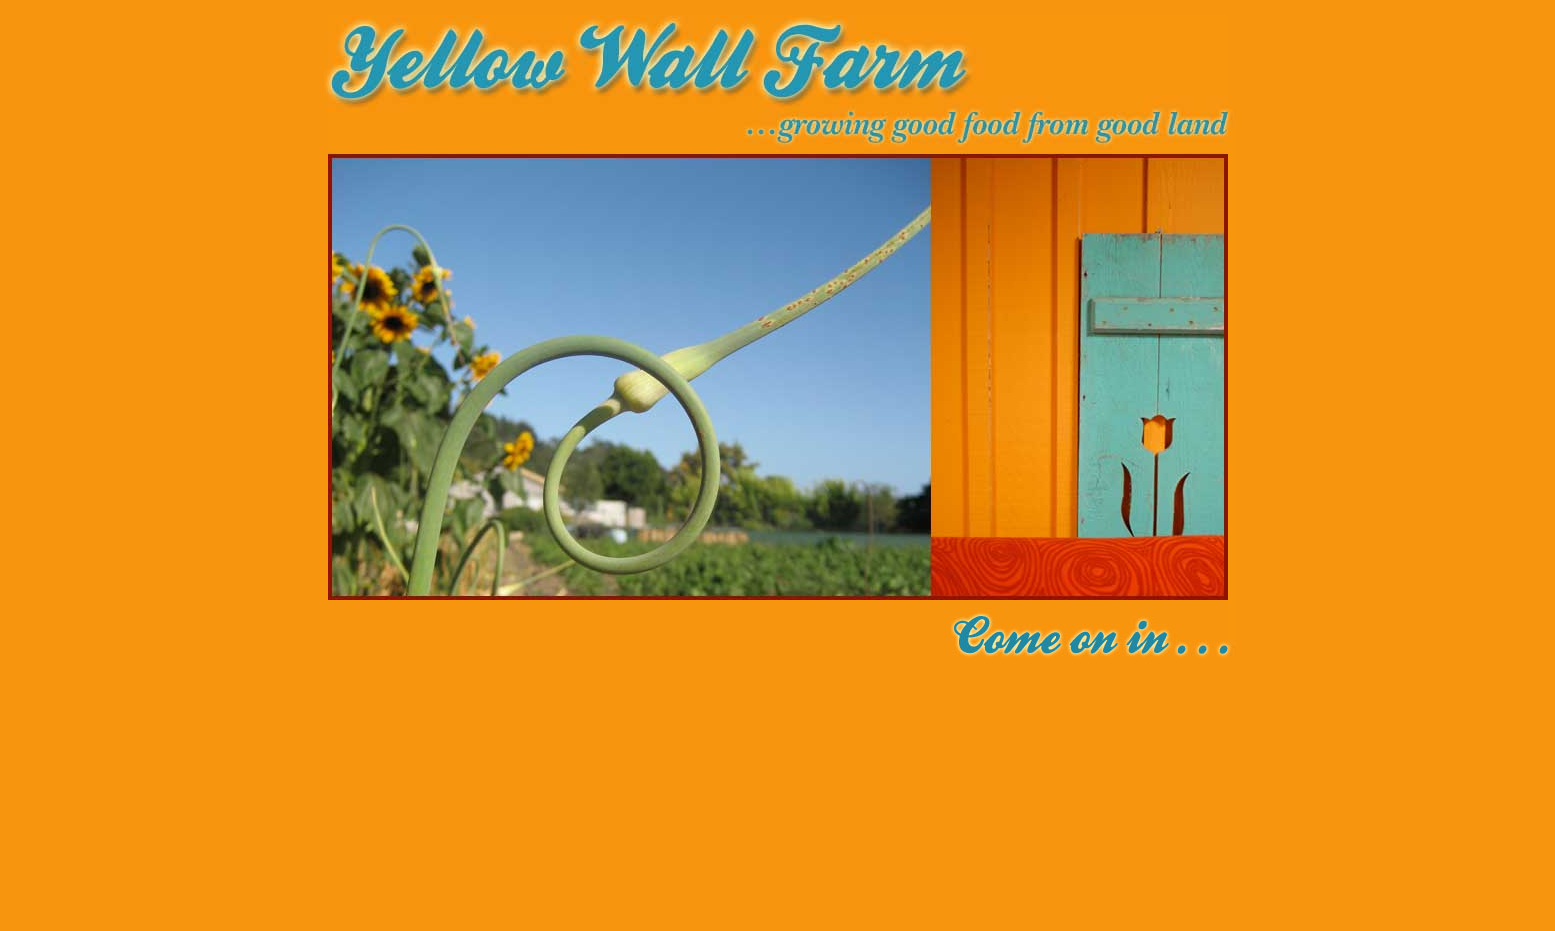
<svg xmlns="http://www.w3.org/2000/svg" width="1555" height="931">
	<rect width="100%" height="100%" fill="#F8950E" />
	<image x="324" y="68" width="4" height="28" href="assets/img1.png" />
	<image x="328" y="15" width="900" height="137" href="assets/img2.png" />
	<image x="1228" y="109" width="8" height="547" href="assets/img3.png" />
	<image x="328" y="153" width="900" height="447" href="assets/img4.png" />
	<image x="950" y="608" width="278" height="50" href="assets/img5.png" />
</svg>
